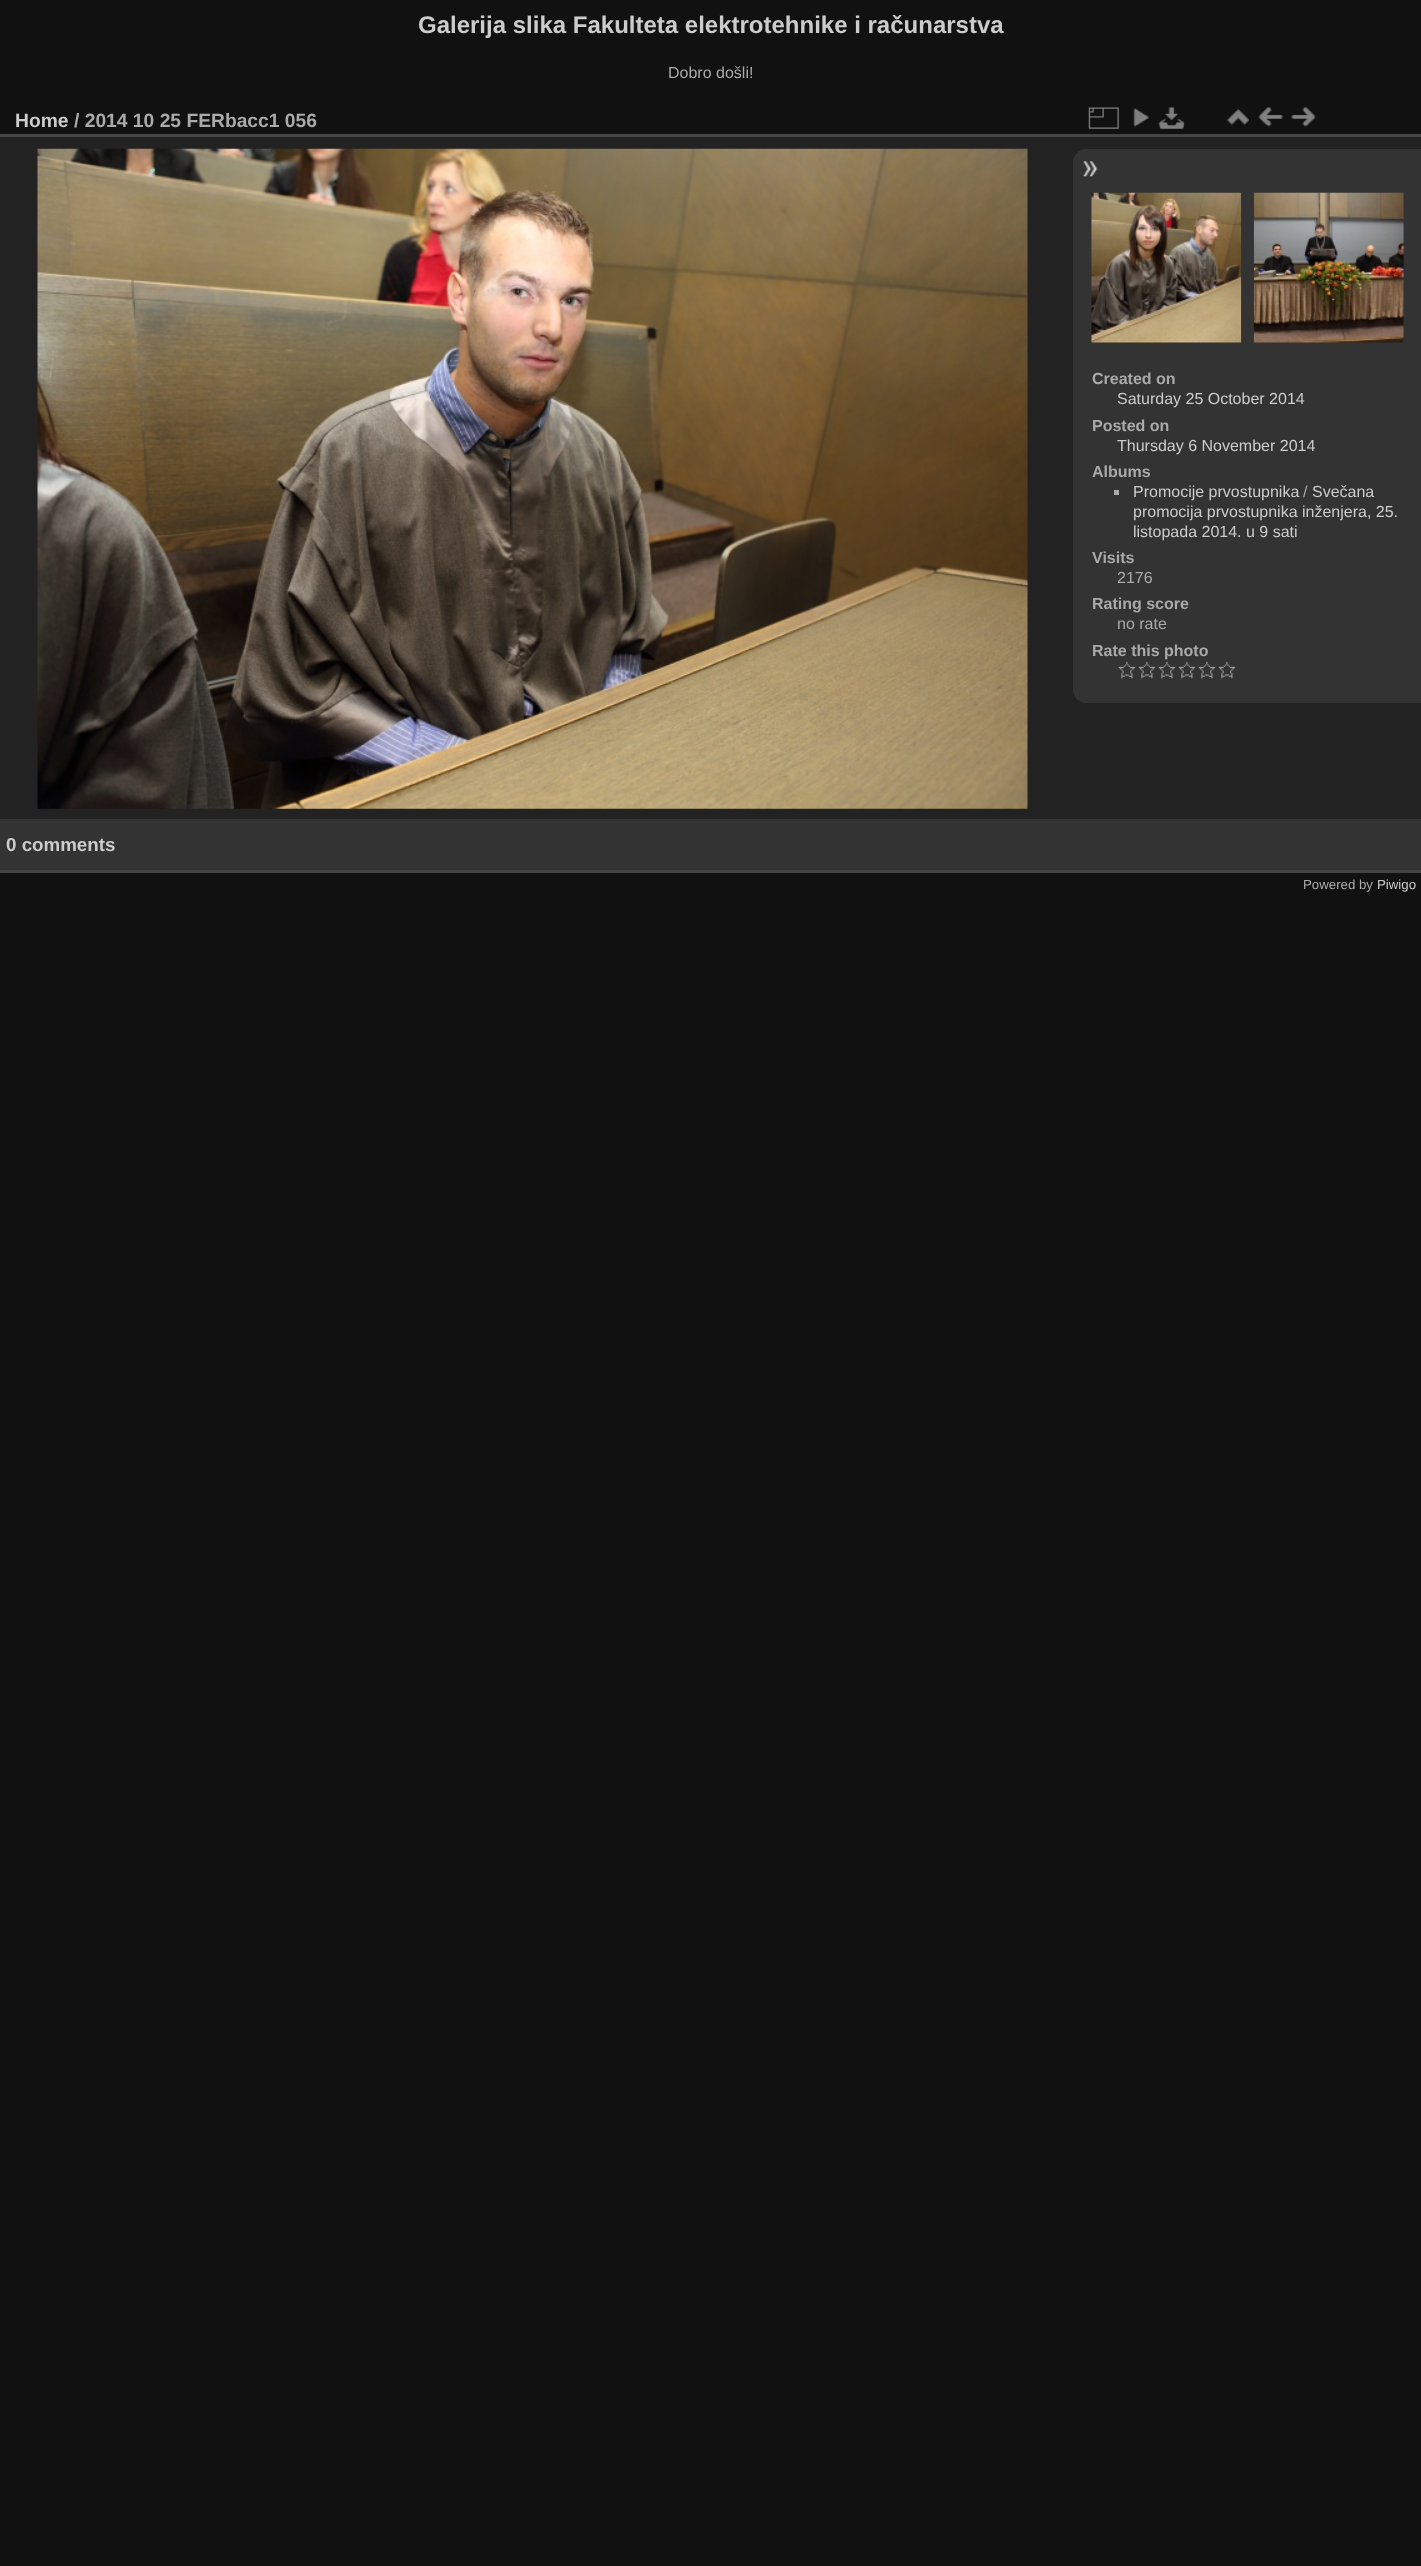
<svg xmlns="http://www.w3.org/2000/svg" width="1421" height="2566">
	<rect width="100%" height="100%" fill="#111111" />
	<text x="418" y="33" font-family="Liberation Sans" font-size="24" font-weight="700" fill="#CCCCCC">Galerija slika Fakulteta elektrotehnike i računarstva</text>
	<text x="668" y="78" font-family="Liberation Sans" font-size="16" fill="#AAAAAA">Dobro došli!</text>
	<rect x="0" y="137" width="1421" height="682" fill="#222222" />
	<rect x="0" y="870" width="1421" height="3" fill="#444444" />
	<rect x="0" y="134" width="1421" height="3" fill="#444444" />
	<text x="15" y="127" font-family="Liberation Sans" font-size="19.25" font-weight="700" fill="#CCCCCC">Home</text>
	<text x="74" y="127" font-family="Liberation Sans" font-size="19.25" font-weight="700" fill="#AAAAAA">/ 2014 10 25 FERbacc1 056</text>
	<image x="1088" y="107" width="31" height="22" href="assets/img1.png" />
	<image x="1133" y="108" width="16" height="19" href="assets/img2.png" />
	<image x="1158" y="107" width="27" height="22" href="assets/img3.png" />
	<image x="1227" y="108" width="22" height="18" href="assets/img4.png" />
	<image x="1258" y="107" width="25" height="20" href="assets/img5.png" />
	<image x="1291" y="107" width="25" height="20" href="assets/img6.png" />
	<image x="37" y="148" width="991" height="661" href="assets/img7.png" />
	<path d="M1086 149H1421V703H1086C1079 703 1073 697 1073 690V162C1073 155 1079 149 1086 149Z" fill="#333333" />
	<image x="1083" y="161" width="15" height="16" href="assets/img8.png" />
	<image x="1091" y="192" width="151" height="151" href="assets/img9.png" />
	<image x="1253" y="192" width="151" height="151" href="assets/img10.png" />
	<text x="1092" y="384" font-family="Liberation Sans" font-size="16" font-weight="700" fill="#AAAAAA">Created on</text>
	<text x="1117" y="404" font-family="Liberation Sans" font-size="16" fill="#CCCCCC">Saturday 25 October 2014</text>
	<text x="1092" y="431" font-family="Liberation Sans" font-size="16" font-weight="700" fill="#AAAAAA">Posted on</text>
	<text x="1117" y="451" font-family="Liberation Sans" font-size="16" fill="#CCCCCC">Thursday 6 November 2014</text>
	<text x="1092" y="477" font-family="Liberation Sans" font-size="16" font-weight="700" fill="#AAAAAA">Albums</text>
	<rect x="1114" y="490" width="5" height="5" fill="#AAAAAA" />
	<text x="1133" y="497" font-family="Liberation Sans" font-size="16" fill="#CCCCCC">Promocije prvostupnika</text>
	<text x="1303" y="497" font-family="Liberation Sans" font-size="16" fill="#AAAAAA">/</text>
	<g font-family="Liberation Sans" font-size="16" fill="#CCCCCC">
		<text x="1312" y="497">Svečana</text>
		<text x="1133" y="517">promocija prvostupnika inženjera, 25.</text>
		<text x="1133" y="537">listopada 2014. u 9 sati</text>
	</g>
	<text x="1092" y="563" font-family="Liberation Sans" font-size="16" font-weight="700" fill="#AAAAAA">Visits</text>
	<text x="1117" y="583" font-family="Liberation Sans" font-size="16" fill="#AAAAAA">2176</text>
	<text x="1092" y="609" font-family="Liberation Sans" font-size="16" font-weight="700" fill="#AAAAAA">Rating score</text>
	<text x="1117" y="629" font-family="Liberation Sans" font-size="16" fill="#AAAAAA">no rate</text>
	<text x="1092" y="656" font-family="Liberation Sans" font-size="16" font-weight="700" fill="#AAAAAA">Rate this photo</text>
	<image x="1118" y="661" width="18" height="18" href="assets/img11.png" />
	<image x="1138" y="661" width="18" height="18" href="assets/img11.png" />
	<image x="1158" y="661" width="18" height="18" href="assets/img11.png" />
	<image x="1178" y="661" width="18" height="18" href="assets/img11.png" />
	<image x="1198" y="661" width="18" height="18" href="assets/img11.png" />
	<image x="1218" y="661" width="18" height="18" href="assets/img11.png" />
	<rect x="0" y="819" width="1421" height="51" fill="#333333" />
	<text x="6" y="851" font-family="Liberation Sans" font-size="18.75" font-weight="700" fill="#CCCCCC">0 comments</text>
	<text x="1303" y="889" font-family="Liberation Sans" font-size="13.25" fill="#AAAAAA">Powered by</text>
	<text x="1377" y="889" font-family="Liberation Sans" font-size="13.25" fill="#CCCCCC">Piwigo</text>
</svg>
